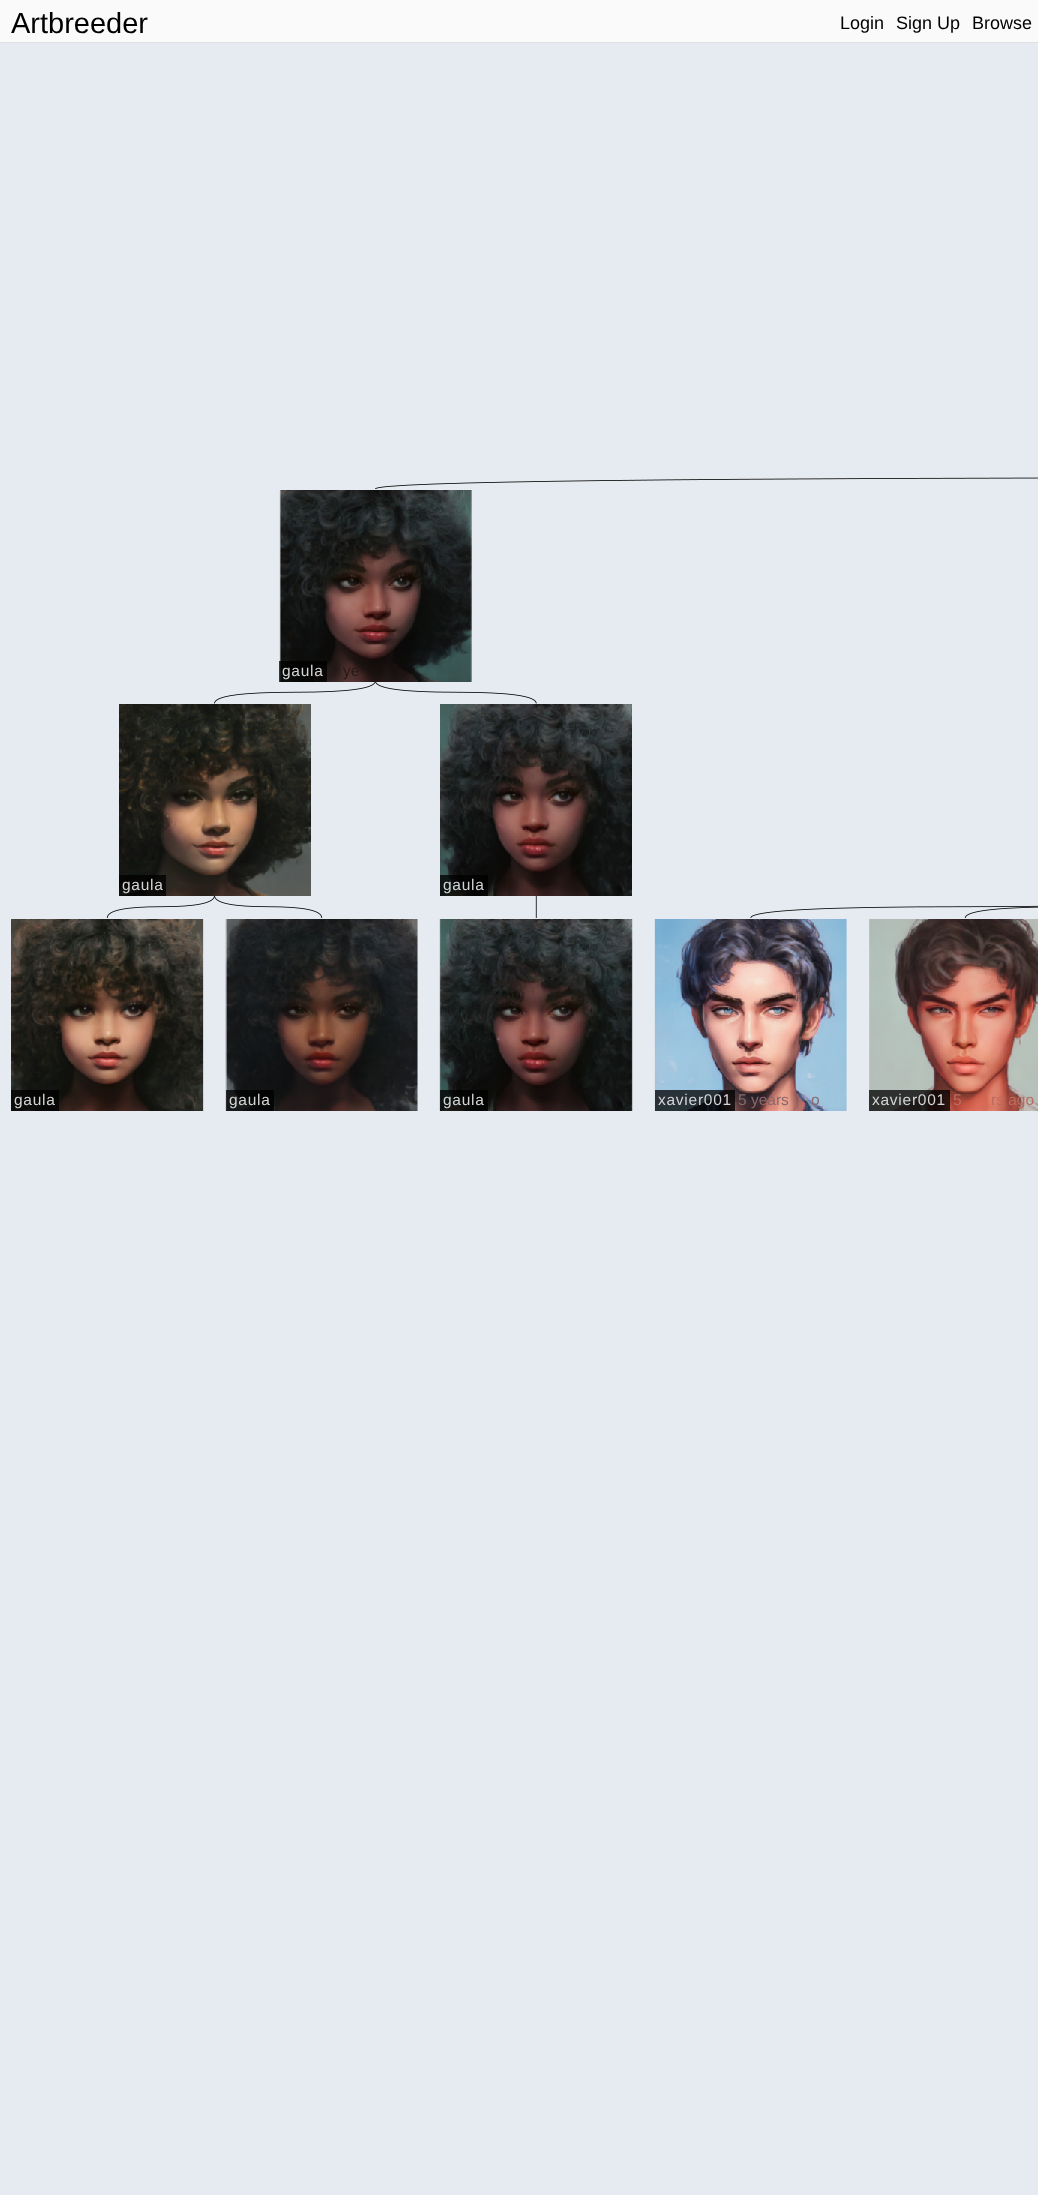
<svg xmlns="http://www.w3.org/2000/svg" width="1038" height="2195">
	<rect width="100%" height="100%" fill="#E6EBF1" />
	<rect x="0" y="0" width="1038" height="42" fill="#FAFAFA" />
	<rect x="0" y="42" width="1038" height="1" fill="#E0E0E0" />
	<text x="11" y="33" font-family="Liberation Sans" font-size="29" fill="#000000">Artbreeder</text>
	<g font-family="Liberation Sans" font-size="18" fill="#000000">
		<text x="840" y="29">Login</text>
		<text x="896" y="29">Sign Up</text>
		<text x="972" y="29">Browse</text>
	</g>
	<image x="106" y="477" width="932" height="441" href="assets/img1.png" />
	<image x="279" y="490" width="193" height="192" href="assets/img2.png" />
	<rect x="279" y="661" width="48" height="21" fill="#000000" fill-opacity="0.75" />
	<text x="282" y="676" font-family="Liberation Sans" font-size="15.5" letter-spacing="0.75" fill="#D4D4D4">gaula</text>
	<text x="343" y="676" font-family="Liberation Sans" font-size="15.5" fill="#271A18">ye</text>
	<image x="119" y="704" width="192" height="192" href="assets/img3.png" />
	<rect x="119" y="875" width="47" height="21" fill="#000000" fill-opacity="0.75" />
	<text x="122" y="890" font-family="Liberation Sans" font-size="15.5" letter-spacing="0.75" fill="#D4D4D4">gaula</text>
	<image x="440" y="704" width="192" height="192" href="assets/img4.png" />
	<rect x="440" y="875" width="48" height="21" fill="#000000" fill-opacity="0.75" />
	<text x="443" y="890" font-family="Liberation Sans" font-size="15.5" letter-spacing="0.75" fill="#D4D4D4">gaula</text>
	<image x="11" y="919" width="193" height="192" href="assets/img5.png" />
	<rect x="11" y="1090" width="48" height="21" fill="#000000" fill-opacity="0.75" />
	<text x="14" y="1105" font-family="Liberation Sans" font-size="15.5" letter-spacing="0.75" fill="#D4D4D4">gaula</text>
	<image x="225" y="919" width="193" height="192" href="assets/img6.png" />
	<rect x="226" y="1090" width="48" height="21" fill="#000000" fill-opacity="0.75" />
	<text x="229" y="1105" font-family="Liberation Sans" font-size="15.5" letter-spacing="0.75" fill="#D4D4D4">gaula</text>
	<image x="439" y="919" width="194" height="192" href="assets/img7.png" />
	<rect x="440" y="1090" width="48" height="21" fill="#000000" fill-opacity="0.75" />
	<text x="443" y="1105" font-family="Liberation Sans" font-size="15.5" letter-spacing="0.75" fill="#D4D4D4">gaula</text>
	<image x="654" y="919" width="193" height="192" href="assets/img8.png" />
	<rect x="655" y="1090" width="80" height="21" fill="#000000" fill-opacity="0.75" />
	<text x="658" y="1105" font-family="Liberation Sans" font-size="15.5" letter-spacing="0.75" fill="#D4D4D4">xavier001</text>
	<g font-family="Liberation Sans" font-size="15.5" fill="#87686B">
		<text x="738" y="1105">5 years</text>
		<text x="811" y="1105">o</text>
	</g>
	<image x="869" y="919" width="169" height="192" href="assets/img9.png" />
	<rect x="869" y="1090" width="81" height="21" fill="#000000" fill-opacity="0.75" />
	<text x="872" y="1105" font-family="Liberation Sans" font-size="15.5" letter-spacing="0.75" fill="#D4D4D4">xavier001</text>
	<g font-family="Liberation Sans" font-size="15.5" fill="#BB6C5E">
		<text x="953" y="1105">5</text>
		<text x="991" y="1105">rs ago</text>
	</g>
</svg>
